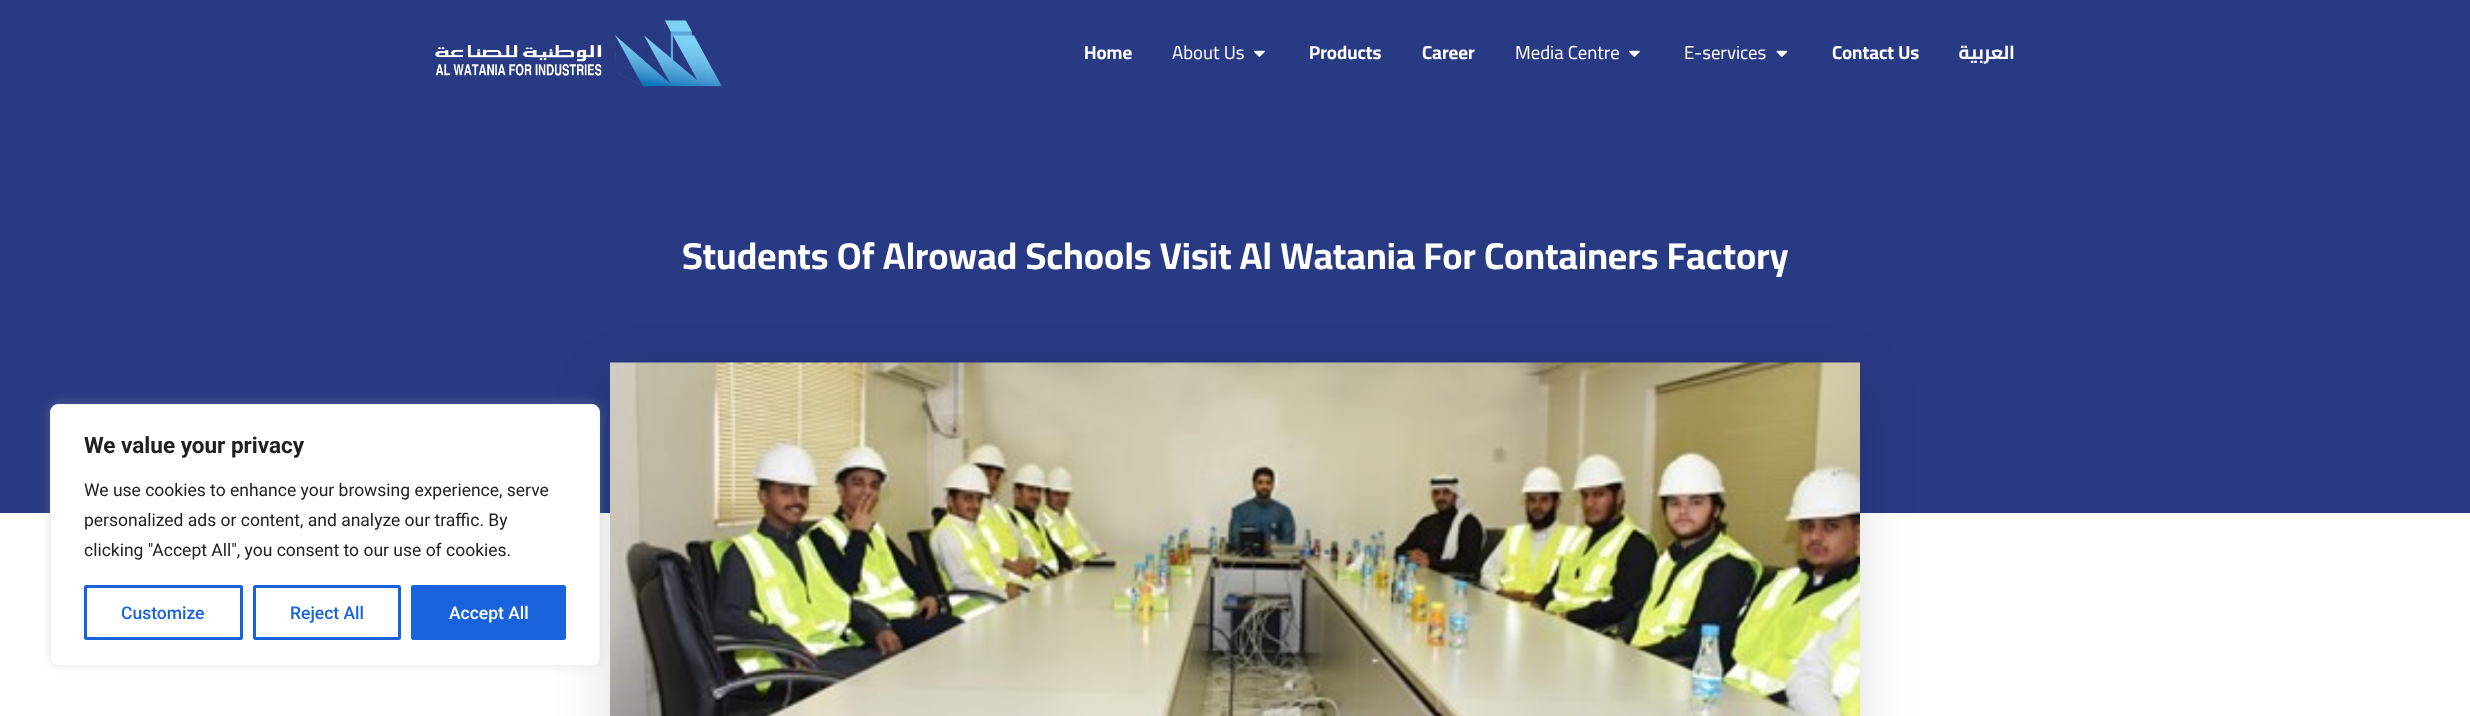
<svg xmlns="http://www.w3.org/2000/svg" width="2470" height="716">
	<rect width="100%" height="100%" fill="#FFFFFF" />
	<rect x="0" y="0" width="2470" height="513" fill="#293A85" />
	<image x="435" y="20" width="287" height="67" href="assets/img1.png" />
	<text x="1084" y="59" font-family="Cairo" font-size="18.75" font-weight="700" fill="#FFFFFF">Home</text>
	<text x="1172" y="59" font-family="Cairo" font-size="18.75" fill="#FFFFFF">About Us</text>
	<image x="1254" y="50" width="11" height="7" href="assets/img2.png" />
	<g font-family="Cairo" font-size="18.75" font-weight="700" fill="#FFFFFF">
		<text x="1309" y="59">Products</text>
		<text x="1422" y="59">Career</text>
	</g>
	<text x="1515" y="59" font-family="Cairo" font-size="18.75" fill="#FFFFFF">Media Centre</text>
	<image x="1629" y="50" width="11" height="7" href="assets/img2.png" />
	<text x="1684" y="59" font-family="Cairo" font-size="18.75" fill="#FFFFFF">E-services</text>
	<image x="1776" y="50" width="12" height="7" href="assets/img3.png" />
	<text x="1832" y="59" font-family="Cairo" font-size="18.75" font-weight="700" fill="#FFFFFF">Contact Us</text>
	<text x="2015" y="59" font-family="Cairo" font-size="18.75" font-weight="700" direction="rtl" fill="#FFFFFF">العربية</text>
	<text x="682" y="269" font-family="Cairo" font-size="37.5" font-weight="700" fill="#FFFFFF">Students Of Alrowad Schools Visit Al Watania For Containers Factory</text>
	<rect x="610" y="379" width="1250" height="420" fill="#000000" fill-opacity="0.13" filter="blur(27.5px)" />
	<image x="610" y="362" width="1250" height="354" href="assets/img4.png" />
	<rect x="50" y="403" width="550" height="262" rx="8" fill="#ACABAB" fill-opacity="0.3" filter="blur(6px)" />
	<rect x="50.5" y="404.5" width="549" height="261" rx="7.5" fill="#FFFFFF" stroke="#F4F4F4" />
	<text x="84" y="453" font-family="Roboto" font-size="22.5" font-weight="700" fill="#212121">We value your privacy</text>
	<g font-family="Roboto" font-size="17.5" fill="#212121">
		<text x="84" y="496">We use cookies to enhance your browsing experience, serve</text>
		<text x="84" y="526">personalized ads or content, and analyze our traffic. By</text>
		<text x="84" y="556">clicking "Accept All", you consent to our use of cookies.</text>
	</g>
	<rect x="85.5" y="586.5" width="156" height="52" rx="1" fill="none" stroke="#1863DC" stroke-width="3" />
	<text x="121" y="619" font-family="Roboto" font-size="17.5" font-weight="500" fill="#1863DC">Customize</text>
	<rect x="254.5" y="586.5" width="145" height="52" rx="1" fill="none" stroke="#1863DC" stroke-width="3" />
	<text x="290" y="619" font-family="Roboto" font-size="17.5" font-weight="500" fill="#1863DC">Reject All</text>
	<rect x="412.5" y="586.5" width="152" height="52" rx="1" fill="#1863DC" stroke="#1863DC" stroke-width="3" />
	<text x="449" y="619" font-family="Roboto" font-size="17.5" font-weight="500" fill="#FFFFFF">Accept All</text>
</svg>
